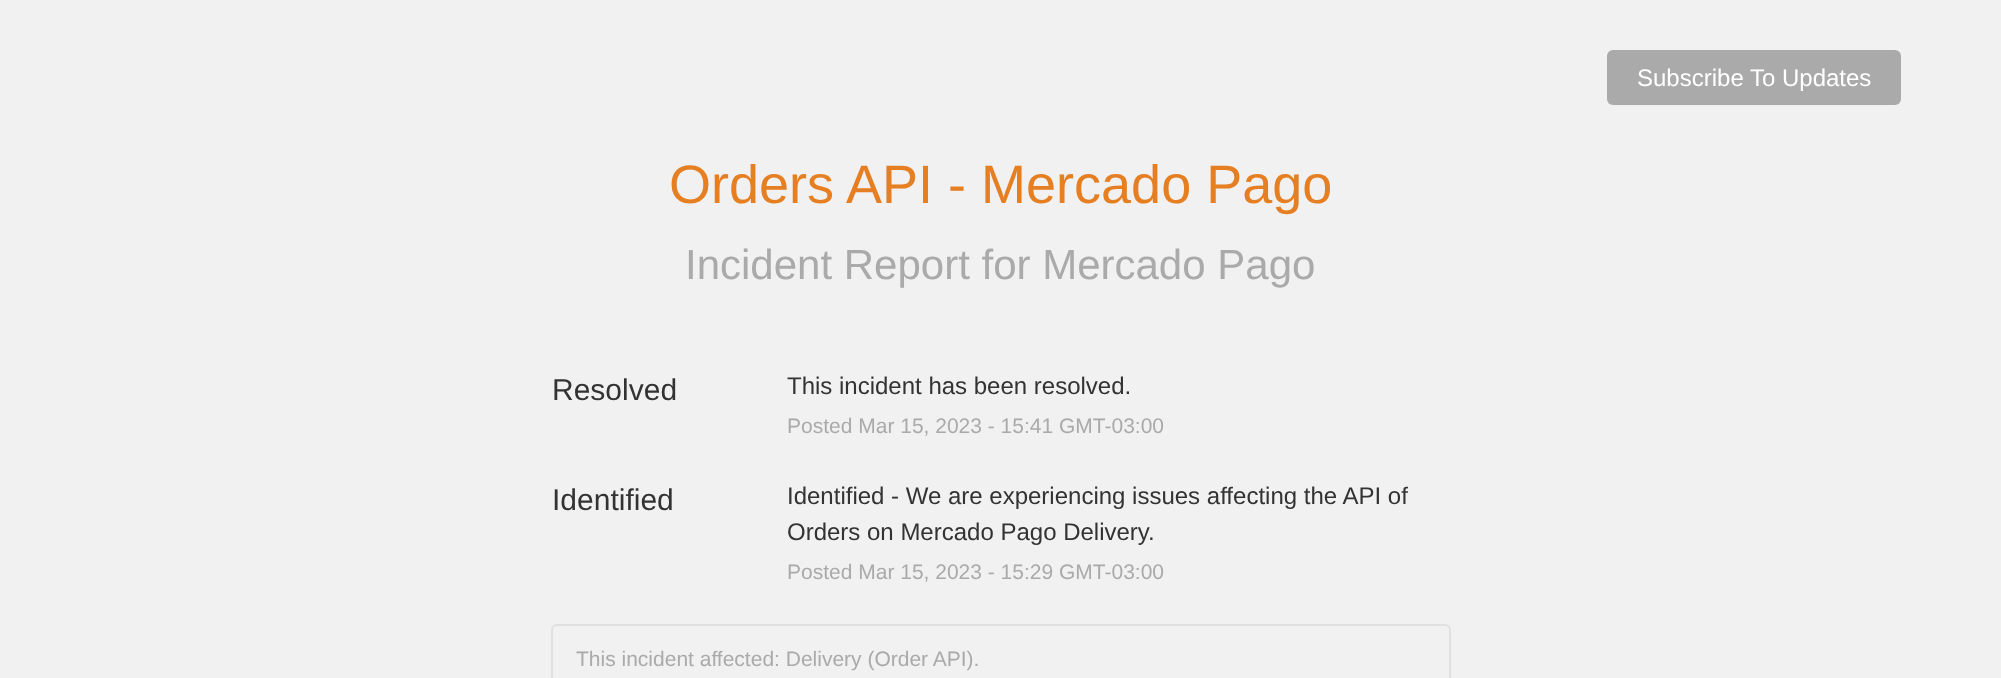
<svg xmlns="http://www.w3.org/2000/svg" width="2001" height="678">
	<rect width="100%" height="100%" fill="#F1F1F1" />
	<rect x="1607" y="50" width="294" height="55" rx="6" fill="#AAAAAA" />
	<text x="1637" y="86" font-family="Liberation Sans" font-size="24" fill="#FFFFFF">Subscribe To Updates</text>
	<text x="669" y="203" font-family="Liberation Sans" font-size="54" fill="#E67E22">Orders API - Mercado Pago</text>
	<text x="685" y="279" font-family="Liberation Sans" font-size="42" fill="#AAAAAA">Incident Report for Mercado Pago</text>
	<text x="552" y="400" font-family="Liberation Sans" font-size="30" fill="#333333">Resolved</text>
	<text x="787" y="394" font-family="Liberation Sans" font-size="24" fill="#333333">This incident has been resolved.</text>
	<text x="787" y="433" font-family="Liberation Sans" font-size="21" fill="#AAAAAA">Posted Mar 15, 2023 - 15:41 GMT-03:00</text>
	<text x="552" y="510" font-family="Liberation Sans" font-size="30" fill="#333333">Identified</text>
	<g font-family="Liberation Sans" font-size="24" fill="#333333">
		<text x="787" y="504">Identified - We are experiencing issues affecting the API of</text>
		<text x="787" y="540">Orders on Mercado Pago Delivery.</text>
	</g>
	<text x="787" y="579" font-family="Liberation Sans" font-size="21" fill="#AAAAAA">Posted Mar 15, 2023 - 15:29 GMT-03:00</text>
	<rect x="552" y="625" width="898" height="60" rx="5" fill="none" stroke="#E0E0E0" stroke-width="2" />
	<text x="576" y="666" font-family="Liberation Sans" font-size="21" fill="#AAAAAA">This incident affected: Delivery (Order API).</text>
</svg>
